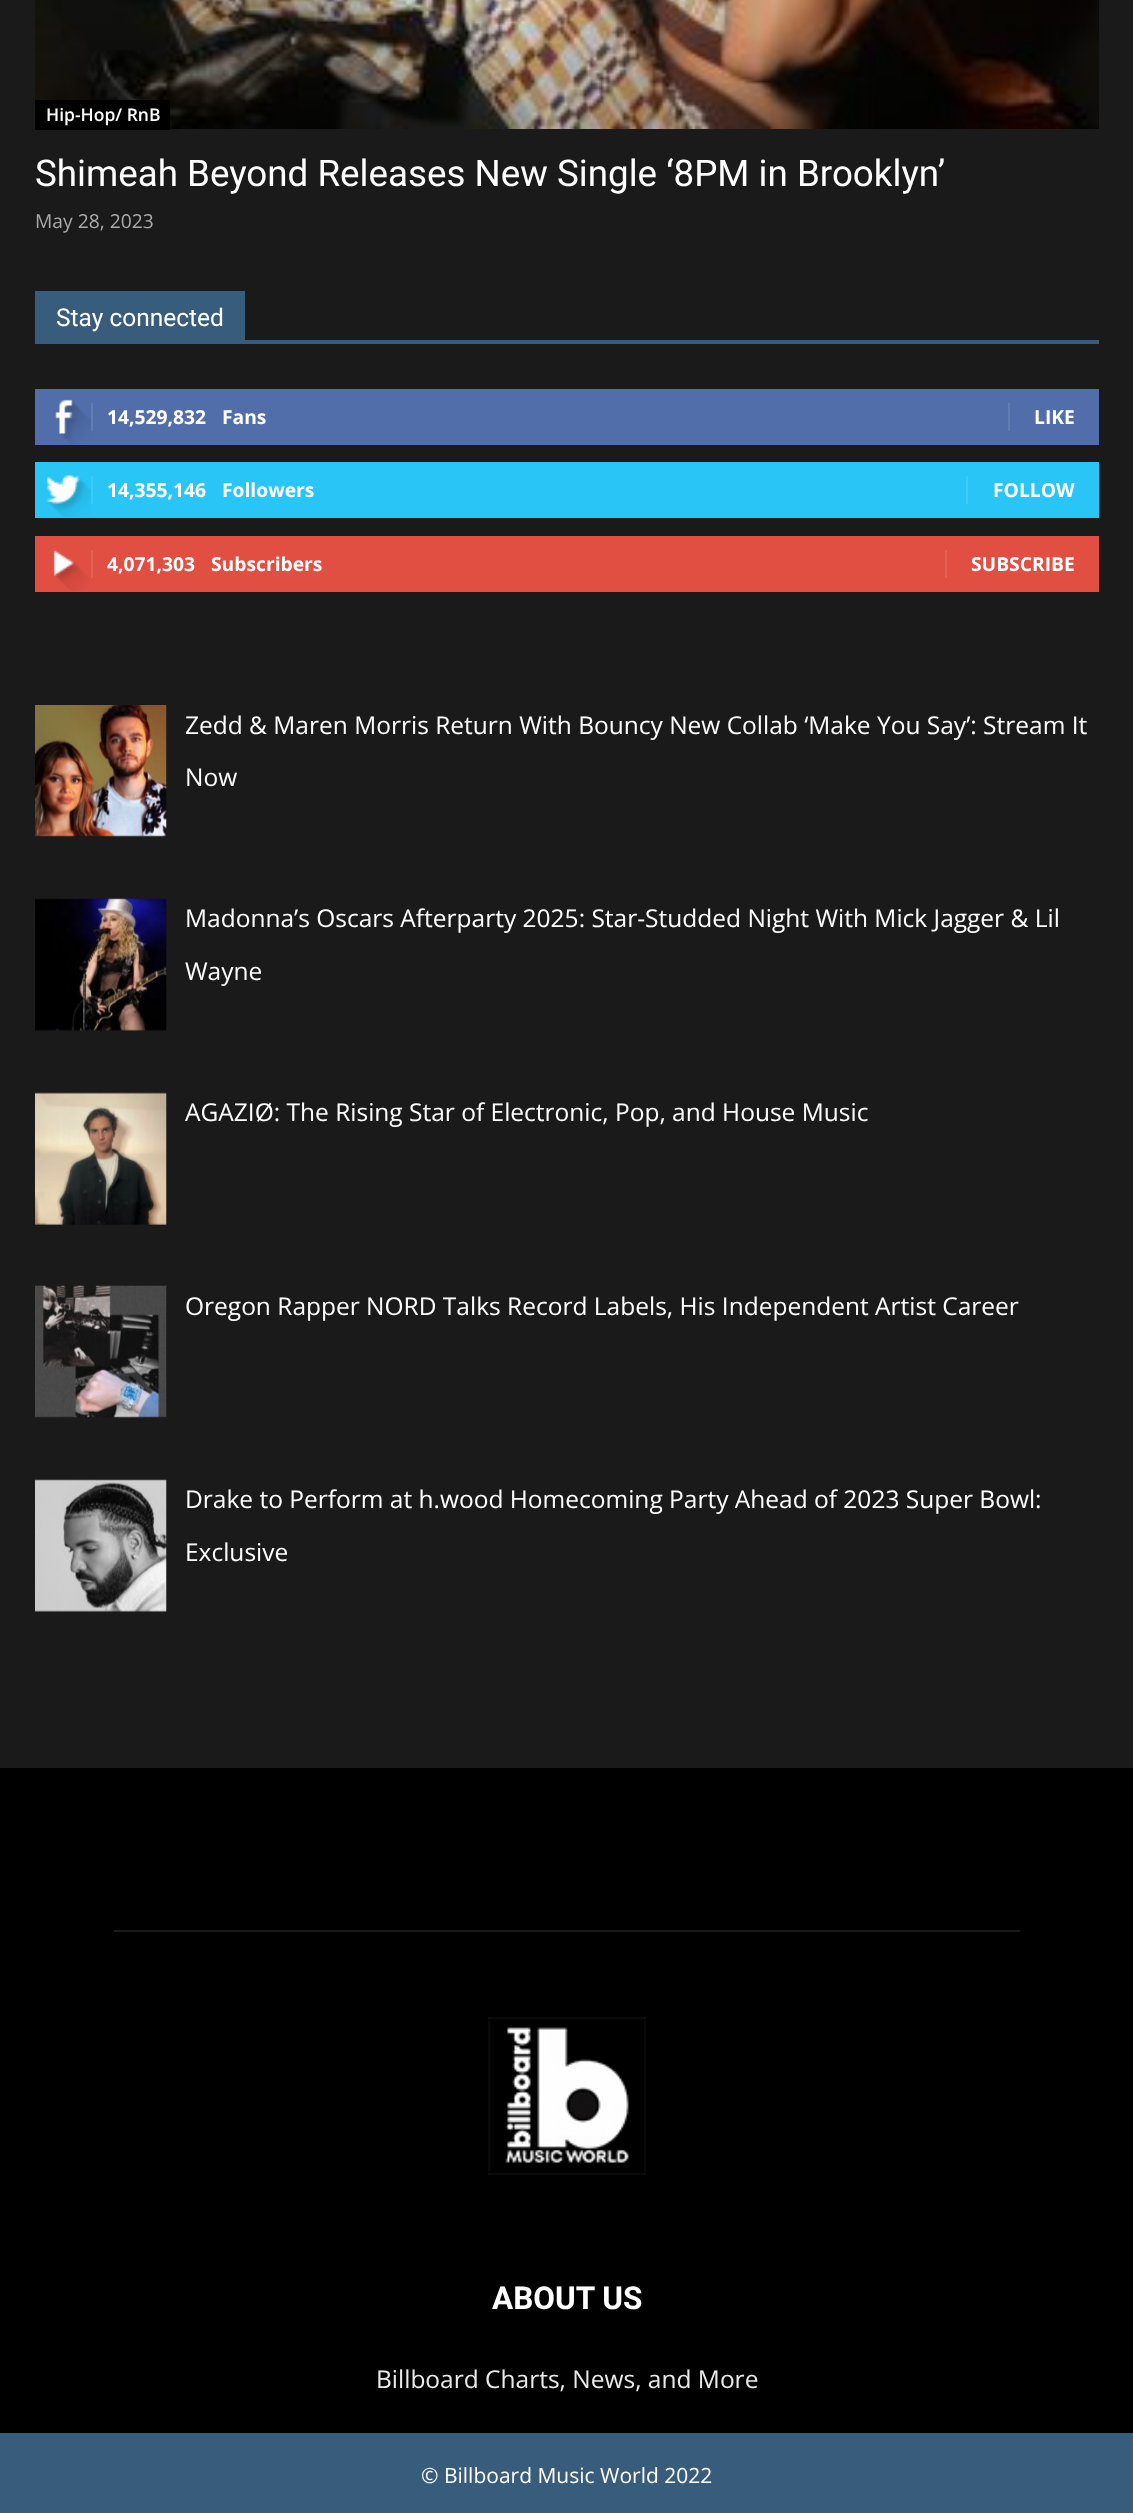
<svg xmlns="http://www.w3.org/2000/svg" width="1133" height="2513">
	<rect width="100%" height="100%" fill="#1A1A1A" />
	<image x="35" y="0" width="1064" height="129" href="assets/img1.png" />
	<rect x="35" y="100" width="135" height="30" fill="#000000" />
	<text x="46" y="121" font-family="Open Sans" font-size="17.5" font-weight="600" fill="#FFFFFF">Hip-Hop/ RnB</text>
	<text x="35" y="186" font-family="Roboto" font-size="36.75" fill="#FFFFFF">Shimeah Beyond Releases New Single ‘8PM in Brooklyn’</text>
	<text x="35" y="228" font-family="Open Sans" font-size="19.25" fill="#AAAAAA">May 28, 2023</text>
	<rect x="35" y="340" width="1064" height="4" fill="#385C7B" />
	<rect x="35" y="291" width="210" height="49" fill="#385C7B" />
	<text x="56" y="326" font-family="Roboto" font-size="24.5" fill="#FFFFFF">Stay connected</text>
	<rect x="35" y="389" width="1064" height="56" fill="#516EAB" />
	<image x="55" y="399" width="36" height="45" href="assets/img2.png" />
	<rect x="91" y="403" width="2" height="28" fill="#627DB3" />
	<g font-family="Open Sans" font-size="19.25" font-weight="700" fill="#FFFFFF">
		<text x="107" y="424">14,529,832</text>
		<text x="222" y="424">Fans</text>
	</g>
	<rect x="1008" y="403" width="2" height="28" fill="#627DB3" />
	<text x="1034" y="424" font-family="Open Sans" font-size="19.25" font-weight="700" fill="#FFFFFF">LIKE</text>
	<rect x="35" y="462" width="1064" height="56" fill="#29C5F6" />
	<image x="45" y="475" width="46" height="42" href="assets/img3.png" />
	<rect x="91" y="476" width="2" height="28" fill="#3ECBF7" />
	<g font-family="Open Sans" font-size="19.25" font-weight="700" fill="#FFFFFF">
		<text x="107" y="497">14,355,146</text>
		<text x="222" y="497">Followers</text>
	</g>
	<rect x="966" y="476" width="2" height="28" fill="#3ECBF7" />
	<text x="993" y="497" font-family="Open Sans" font-size="19.25" font-weight="700" fill="#FFFFFF">FOLLOW</text>
	<rect x="35" y="536" width="1064" height="56" fill="#E14E42" />
	<image x="53" y="550" width="36" height="41" href="assets/img4.png" />
	<rect x="91" y="550" width="2" height="28" fill="#E46055" />
	<g font-family="Open Sans" font-size="19.25" font-weight="700" fill="#FFFFFF">
		<text x="107" y="571">4,071,303</text>
		<text x="211" y="571">Subscribers</text>
	</g>
	<rect x="945" y="550" width="2" height="28" fill="#E46055" />
	<text x="971" y="571" font-family="Open Sans" font-size="19.25" font-weight="700" fill="#FFFFFF">SUBSCRIBE</text>
	<image x="35" y="705" width="132" height="132" href="assets/img5.png" />
	<g font-family="Open Sans" font-size="24.5" fill="#FFFFFF">
		<text x="185" y="734">Zedd &amp; Maren Morris Return With Bouncy New Collab ‘Make You Say’: Stream It</text>
		<text x="185" y="786">Now</text>
	</g>
	<image x="35" y="898" width="132" height="133" href="assets/img6.png" />
	<g font-family="Open Sans" font-size="24.5" fill="#FFFFFF">
		<text x="185" y="927">Madonna’s Oscars Afterparty 2025: Star-Studded Night With Mick Jagger &amp; Lil</text>
		<text x="185" y="980">Wayne</text>
	</g>
	<image x="35" y="1092" width="132" height="133" href="assets/img7.png" />
	<text x="185" y="1121" font-family="Open Sans" font-size="24.5" fill="#FFFFFF">AGAZIØ: The Rising Star of Electronic, Pop, and House Music</text>
	<image x="35" y="1285" width="132" height="133" href="assets/img8.png" />
	<text x="185" y="1315" font-family="Open Sans" font-size="24.5" fill="#FFFFFF">Oregon Rapper NORD Talks Record Labels, His Independent Artist Career</text>
	<image x="35" y="1479" width="132" height="133" href="assets/img9.png" />
	<g font-family="Open Sans" font-size="24.5" fill="#FFFFFF">
		<text x="185" y="1508">Drake to Perform at h.wood Homecoming Party Ahead of 2023 Super Bowl:</text>
		<text x="185" y="1561">Exclusive</text>
	</g>
	<rect x="0" y="1768" width="1133" height="665" fill="#000000" />
	<rect x="114" y="1930" width="906" height="2" fill="#1A1A1A" />
	<image x="488" y="2017" width="158" height="158" href="assets/img10.png" />
	<text x="492" y="2309" font-family="Roboto" font-size="31.5" font-weight="700" fill="#FFFFFF">ABOUT US</text>
	<text x="376" y="2388" font-family="Open Sans" font-size="24.5" fill="#EAEAEA">Billboard Charts, News, and More</text>
	<rect x="0" y="2433" width="1133" height="80" fill="#385C7B" />
	<text x="421" y="2483" font-family="Open Sans" font-size="21" fill="#FFFFFF">© Billboard Music World 2022</text>
</svg>
